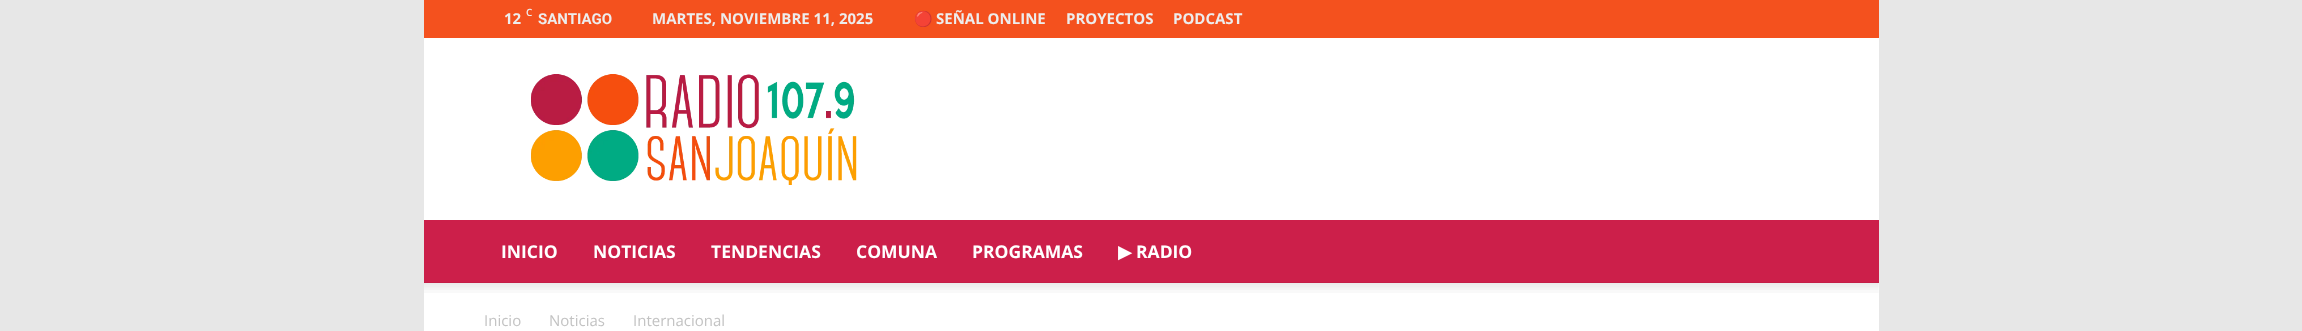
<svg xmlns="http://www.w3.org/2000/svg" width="2302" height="331">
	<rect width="100%" height="100%" fill="#E7E7E7" />
	<rect x="424" y="0" width="1455" height="38" fill="#F4511E" />
	<text x="504" y="24" font-family="Open Sans" font-size="15" font-weight="700" fill="#EDEDED">12</text>
	<text x="526" y="16" font-family="Open Sans" font-size="10" font-weight="600" fill="#EDEDED">C</text>
	<text x="538" y="24" font-family="Roboto" font-size="15" font-weight="700" fill="#EDEDED">SANTIAGO</text>
	<text x="652" y="24" font-family="Open Sans" font-size="15" font-weight="700" fill="#EDEDED">MARTES, NOVIEMBRE 11, 2025</text>
	<text x="914" y="24" font-family="Noto Color Emoji" font-size="15" font-weight="700" fill="#EDEDED">🔴</text>
	<g font-family="Open Sans" font-size="15" font-weight="700" fill="#EDEDED">
		<text x="936" y="24">SEÑAL ONLINE</text>
		<text x="1066" y="24">PROYECTOS</text>
		<text x="1173" y="24">PODCAST</text>
	</g>
	<rect x="424" y="38" width="1455" height="182" fill="#FFFFFF" />
	<image x="531" y="74" width="326" height="111" href="assets/img1.png" />
	<rect x="424" y="220" width="1455" height="63" fill="#CC1F4A" />
	<g font-family="Open Sans" font-size="17.5" font-weight="700" fill="#FFFFFF">
		<text x="501" y="258">INICIO</text>
		<text x="593" y="258">NOTICIAS</text>
		<text x="711" y="258">TENDENCIAS</text>
		<text x="856" y="258">COMUNA</text>
		<text x="972" y="258">PROGRAMAS</text>
	</g>
	<text x="1118" y="258" font-family="DejaVu Sans" font-size="17.5" font-weight="700" fill="#FFFFFF">▶</text>
	<text x="1136" y="258" font-family="Open Sans" font-size="17.5" font-weight="700" fill="#FFFFFF">RADIO</text>
	<rect x="424" y="283" width="1455" height="48" fill="#FFFFFF" />
	<image x="424" y="282" width="1455" height="11" href="assets/img2.png" />
	<g font-family="Open Sans" font-size="15" fill="#C3C3C3">
		<text x="484" y="326">Inicio</text>
		<text x="549" y="326">Noticias</text>
		<text x="633" y="326">Internacional</text>
	</g>
</svg>
